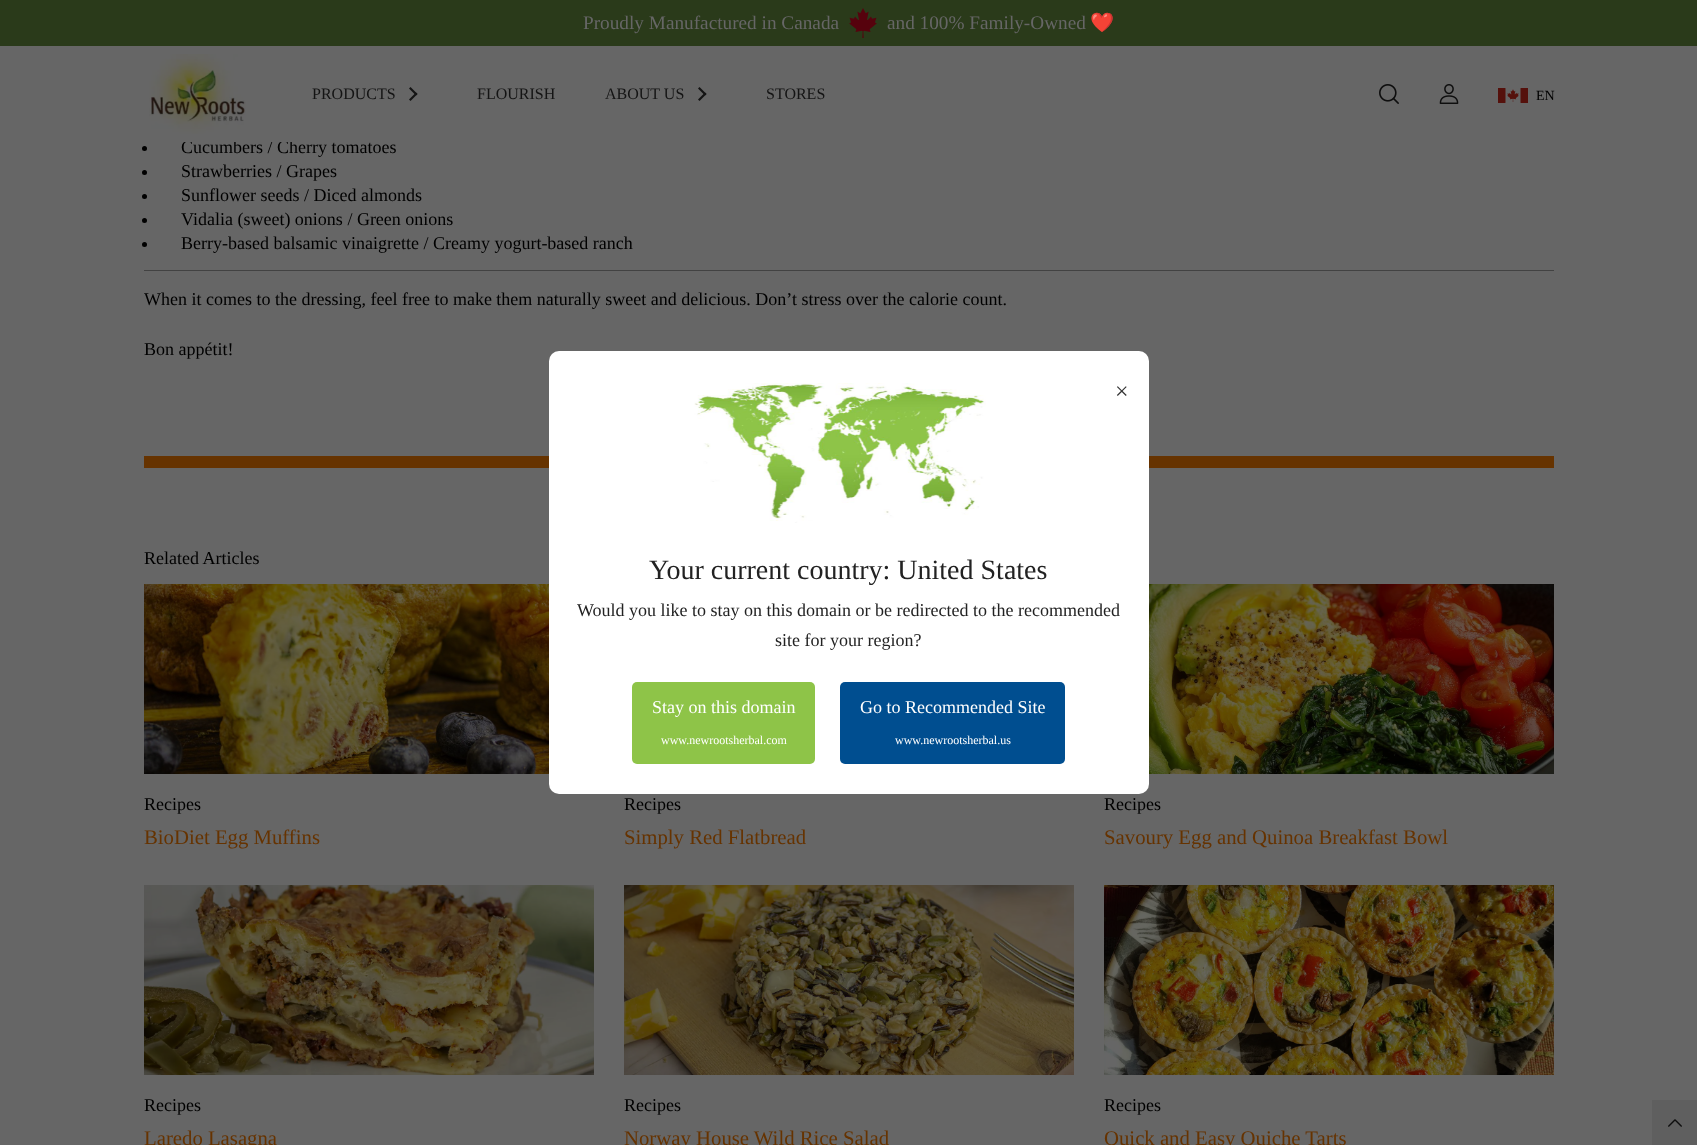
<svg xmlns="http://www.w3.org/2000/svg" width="1697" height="1145">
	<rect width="100%" height="100%" fill="#666666" />
	<text x="181" y="153" font-family="Liberation Serif" font-size="18" fill="#000000">Cucumbers / Cherry tomatoes</text>
	<rect x="184" y="140" width="108" height="2" fill="#666666" />
	<rect x="0" y="0" width="1697" height="46" fill="#2A3A1A" />
	<text x="583" y="29" font-family="Liberation Serif" font-size="19.25" fill="#666666">Proudly Manufactured in Canada</text>
	<image x="849" y="8" width="28" height="30" href="assets/img1.png" />
	<text x="887" y="29" font-family="Liberation Serif" font-size="19.25" fill="#666666">and 100% Family-Owned</text>
	<text x="1090" y="29" font-family="Noto Color Emoji" font-size="19.25" fill="#666666">❤️</text>
	<image x="149" y="54" width="97" height="80" href="assets/img2.png" />
	<text x="312" y="99" font-family="Liberation Serif" font-size="16" fill="#141414">PRODUCTS</text>
	<path d="M409 88.5L410.5 87L417.5 94L416 95.5Z" fill="#141414" />
	<path d="M409 99.5L416 92.5L417.5 94L410.5 101Z" fill="#141414" />
	<g font-family="Liberation Serif" font-size="16" fill="#141414">
		<text x="477" y="99">FLOURISH</text>
		<text x="605" y="99">ABOUT US</text>
	</g>
	<path d="M698 88.5L699.5 87L706.5 94L705 95.5Z" fill="#141414" />
	<path d="M698 99.5L705 92.5L706.5 94L699.5 101Z" fill="#141414" />
	<text x="766" y="99" font-family="Liberation Serif" font-size="16" fill="#141414">STORES</text>
	<image x="1379" y="84" width="20" height="20" href="assets/img3.png" />
	<image x="1439" y="84" width="20" height="20" href="assets/img4.png" />
	<image x="1498" y="88" width="30" height="15" href="assets/img5.png" />
	<text x="1536" y="100" font-family="Liberation Serif" font-size="14" fill="#000000">EN</text>
	<rect x="144" y="456" width="1410" height="12" fill="#663300" />
	<rect x="144" y="270" width="1410" height="1" fill="#424242" />
	<circle cx="144.5" cy="148.5" r="2.5" fill="#000000" />
	<circle cx="144.5" cy="172.5" r="2.5" fill="#000000" />
	<text x="181" y="177" font-family="Liberation Serif" font-size="18" fill="#000000">Strawberries / Grapes</text>
	<circle cx="144.5" cy="196.5" r="2.5" fill="#000000" />
	<text x="181" y="201" font-family="Liberation Serif" font-size="18" fill="#000000">Sunflower seeds / Diced almonds</text>
	<circle cx="144.5" cy="220.5" r="2.5" fill="#000000" />
	<text x="181" y="225" font-family="Liberation Serif" font-size="18" fill="#000000">Vidalia (sweet) onions / Green onions</text>
	<circle cx="144.5" cy="244.5" r="2.5" fill="#000000" />
	<g font-family="Liberation Serif" font-size="18" fill="#000000">
		<text x="181" y="249">Berry-based balsamic vinaigrette / Creamy yogurt-based ranch</text>
		<text x="144" y="305">When it comes to the dressing, feel free to make them naturally sweet and delicious. Don’t stress over the calorie count.</text>
		<text x="144" y="355">Bon appétit!</text>
		<text x="144" y="564">Related Articles</text>
	</g>
	<image x="144" y="584" width="405" height="190" href="assets/img6.png" />
	<text x="144" y="810" font-family="Liberation Serif" font-size="18" fill="#000000">Recipes</text>
	<text x="144" y="844" font-family="Liberation Serif" font-size="20.75" fill="#663300">BioDiet Egg Muffins</text>
	<text x="624" y="810" font-family="Liberation Serif" font-size="18" fill="#000000">Recipes</text>
	<text x="624" y="844" font-family="Liberation Serif" font-size="20.75" fill="#663300">Simply Red Flatbread</text>
	<image x="1149" y="584" width="405" height="190" href="assets/img7.png" />
	<text x="1104" y="810" font-family="Liberation Serif" font-size="18" fill="#000000">Recipes</text>
	<text x="1104" y="844" font-family="Liberation Serif" font-size="20.75" fill="#663300">Savoury Egg and Quinoa Breakfast Bowl</text>
	<image x="144" y="885" width="450" height="190" href="assets/img8.png" />
	<text x="144" y="1111" font-family="Liberation Serif" font-size="18" fill="#000000">Recipes</text>
	<text x="144" y="1145" font-family="Liberation Serif" font-size="20.75" fill="#663300">Laredo Lasagna</text>
	<image x="624" y="885" width="450" height="190" href="assets/img9.png" />
	<text x="624" y="1111" font-family="Liberation Serif" font-size="18" fill="#000000">Recipes</text>
	<text x="624" y="1145" font-family="Liberation Serif" font-size="20.75" fill="#663300">Norway House Wild Rice Salad</text>
	<image x="1104" y="885" width="450" height="190" href="assets/img10.png" />
	<text x="1104" y="1111" font-family="Liberation Serif" font-size="18" fill="#000000">Recipes</text>
	<text x="1104" y="1145" font-family="Liberation Serif" font-size="20.75" fill="#663300">Quick and Easy Quiche Tarts</text>
	<rect x="549" y="351" width="600" height="443" rx="10" fill="#FFFFFF" />
	<image x="694" y="383" width="292" height="140" href="assets/img11.png" />
	<text x="1115" y="399" font-family="Liberation Serif" font-size="24" fill="#333333">×</text>
	<text x="649" y="579" font-family="Liberation Serif" font-size="28" fill="#222222">Your current country: United States</text>
	<g font-family="Liberation Serif" font-size="18" fill="#222222">
		<text x="577" y="616">Would you like to stay on this domain or be redirected to the recommended</text>
		<text x="775" y="646">site for your region?</text>
	</g>
	<rect x="632" y="682" width="183" height="82" rx="5" fill="#8EC448" />
	<text x="652" y="713" font-family="Liberation Serif" font-size="18" fill="#FFFFFF">Stay on this domain</text>
	<text x="661" y="744" font-family="Liberation Serif" font-size="12" fill="#FFFFFF">www.newrootsherbal.com</text>
	<rect x="840" y="682" width="225" height="82" rx="5" fill="#004E90" />
	<text x="860" y="713" font-family="Liberation Serif" font-size="18" fill="#FFFFFF">Go to Recommended Site</text>
	<text x="895" y="744" font-family="Liberation Serif" font-size="12" fill="#FFFFFF">www.newrootsherbal.us</text>
	<rect x="1652" y="1100" width="45" height="45" fill="#5F5F5F" />
	<image x="1668" y="1119" width="14" height="8" href="assets/img12.png" />
</svg>
